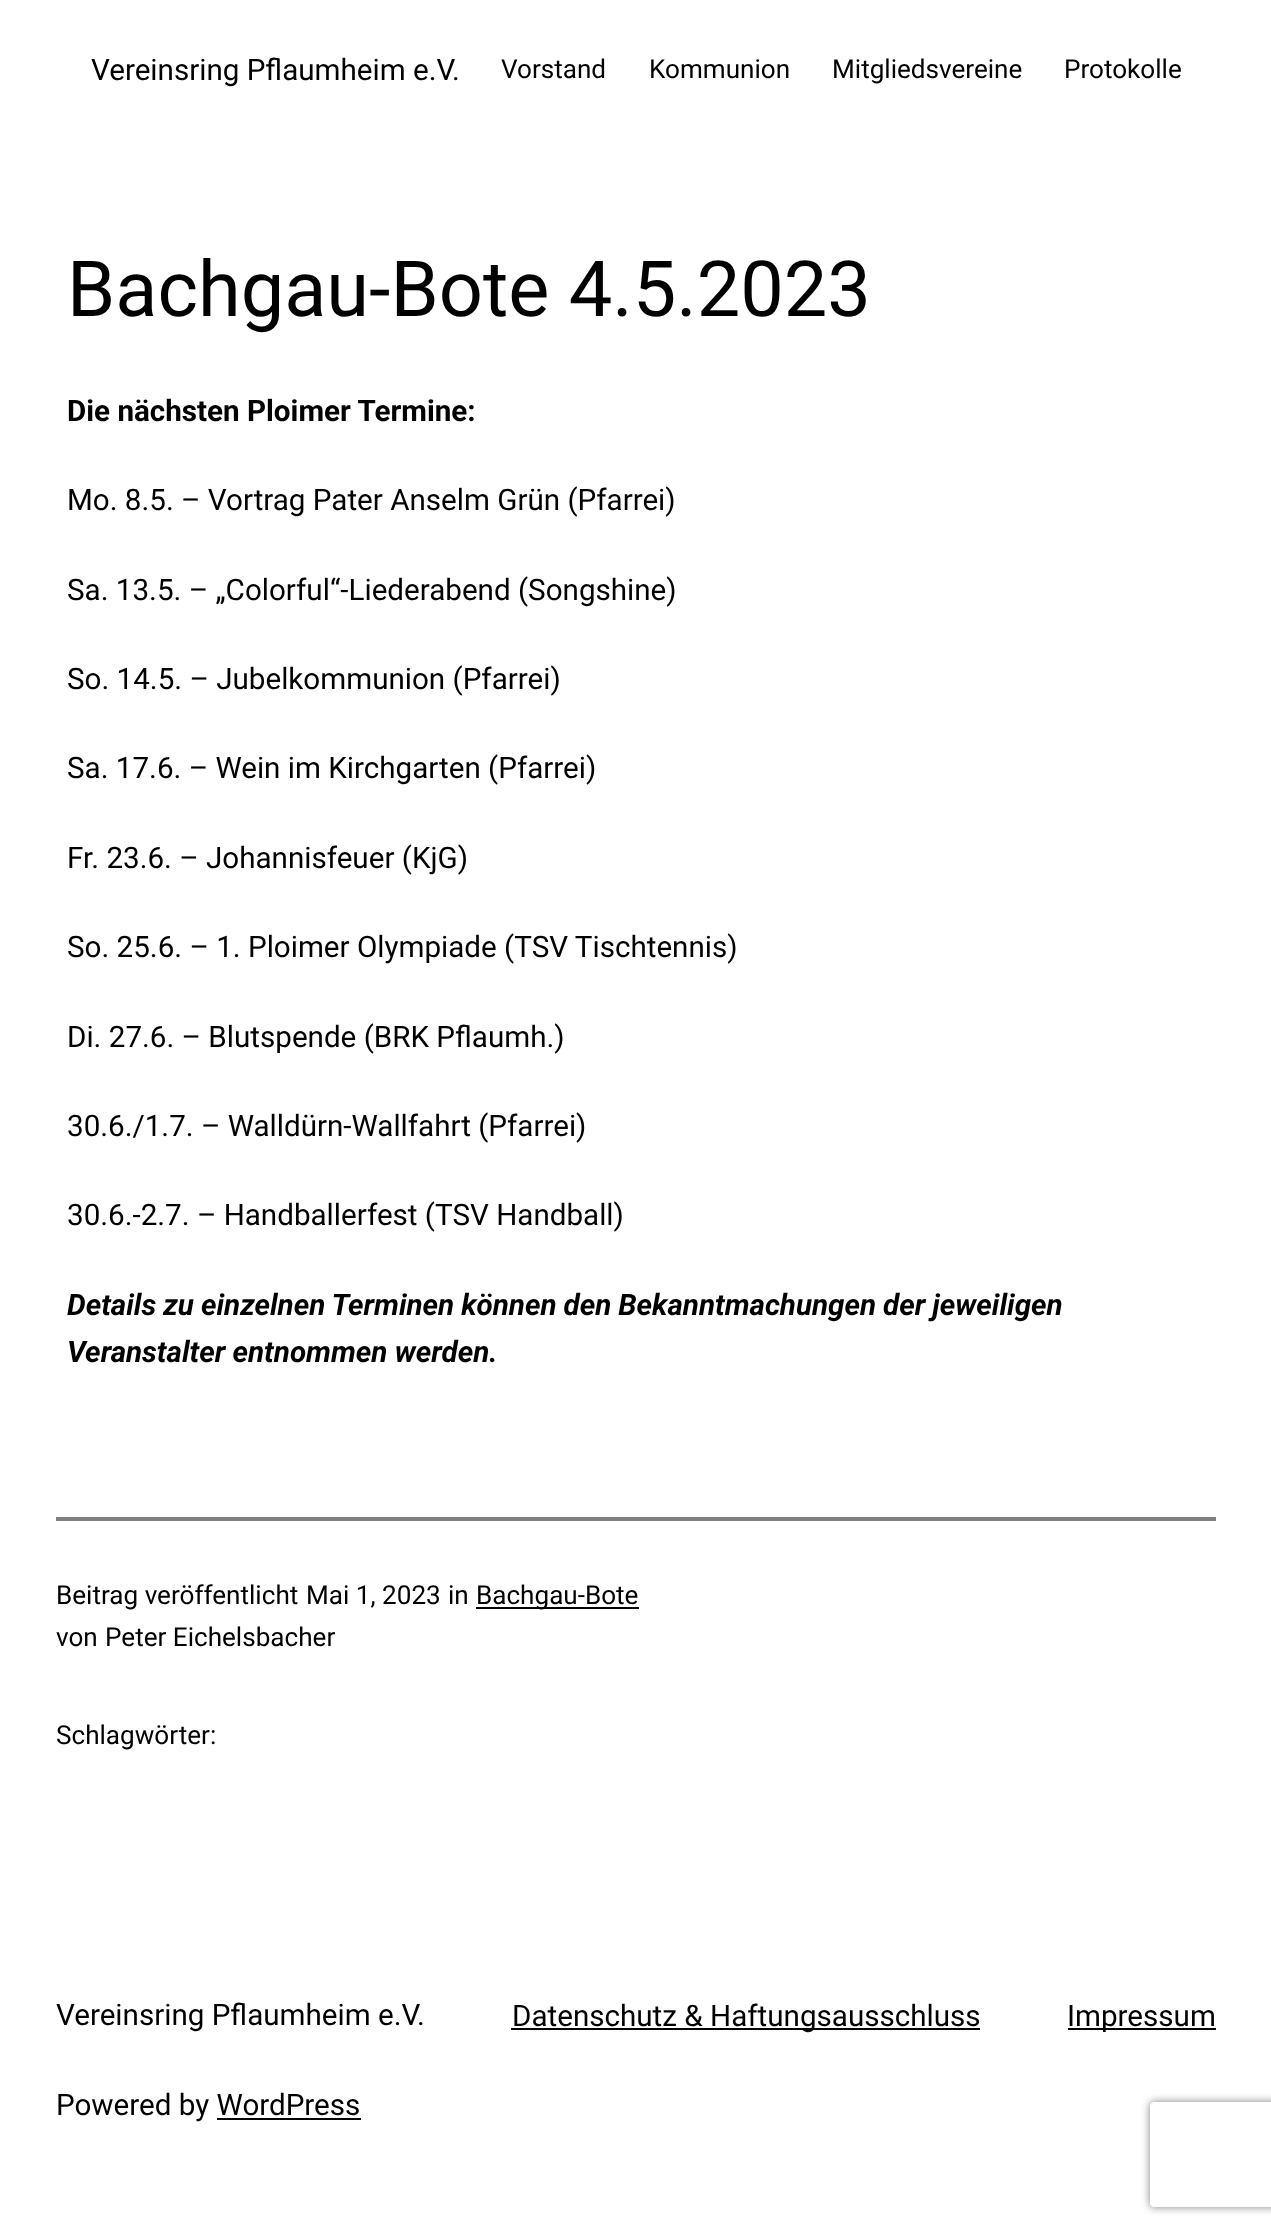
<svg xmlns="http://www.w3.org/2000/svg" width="1271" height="2230">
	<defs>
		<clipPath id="clip1"><path d="M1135 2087H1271V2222H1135ZM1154 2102H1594C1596 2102 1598 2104 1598 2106V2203C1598 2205 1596 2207 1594 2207H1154C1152 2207 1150 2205 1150 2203V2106C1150 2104 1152 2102 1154 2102Z" clip-rule="evenodd" /></clipPath>
	</defs>
	<rect width="100%" height="100%" fill="#FFFFFF" />
	<text x="91" y="80" font-family="Roboto" font-size="29.6" fill="#000000">Vereinsring Pflaumheim e.V.</text>
	<g font-family="Roboto" font-size="26.1" fill="#000000">
		<text x="501" y="78">Vorstand</text>
		<text x="649" y="78">Kommunion</text>
		<text x="832" y="78">Mitgliedsvereine</text>
		<text x="1064" y="78">Protokolle</text>
	</g>
	<text x="67" y="316" font-family="Roboto" font-size="77.5" fill="#000000">Bachgau-Bote 4.5.2023</text>
	<text x="67" y="421" font-family="Roboto" font-size="29.6" font-weight="700" fill="#000000">Die nächsten Ploimer Termine:</text>
	<g font-family="Roboto" font-size="29.6" fill="#000000">
		<text x="67" y="510">Mo. 8.5. – Vortrag Pater Anselm Grün (Pfarrei)</text>
		<text x="67" y="600">Sa. 13.5. – „Colorful“-Liederabend (Songshine)</text>
		<text x="67" y="689">So. 14.5. – Jubelkommunion (Pfarrei)</text>
		<text x="67" y="778">Sa. 17.6. – Wein im Kirchgarten (Pfarrei)</text>
		<text x="67" y="868">Fr. 23.6. – Johannisfeuer (KjG)</text>
		<text x="67" y="957">So. 25.6. – 1. Ploimer Olympiade (TSV Tischtennis)</text>
		<text x="67" y="1047">Di. 27.6. – Blutspende (BRK Pflaumh.)</text>
		<text x="67" y="1136">30.6./1.7. – Walldürn-Wallfahrt (Pfarrei)</text>
		<text x="67" y="1225">30.6.-2.7. – Handballerfest (TSV Handball)</text>
	</g>
	<g font-family="Roboto" font-size="29.6" font-weight="700" font-style="italic" fill="#000000">
		<text x="67" y="1315" word-spacing="-0.25">Details zu einzelnen Terminen können den Bekanntmachungen der jeweiligen</text>
		<text x="67" y="1362">Veranstalter entnommen werden.</text>
	</g>
	<rect x="56" y="1517" width="1160" height="4" fill="#808080" />
	<g font-family="Roboto" font-size="26.1" fill="#000000">
		<text x="56" y="1604">Beitrag veröffentlicht</text>
		<text x="306" y="1604">Mai 1, 2023</text>
		<text x="448" y="1604">in</text>
	</g>
	<rect x="476" y="1607" width="163" height="2" fill="#000000" />
	<g font-family="Roboto" font-size="26.1" fill="#000000">
		<text x="476" y="1604">Bachgau-Bote</text>
		<text x="56" y="1646">von</text>
		<text x="105" y="1646">Peter Eichelsbacher</text>
		<text x="56" y="1744">Schlagwörter:</text>
	</g>
	<text x="56" y="2025" font-family="Roboto" font-size="29.6" fill="#000000">Vereinsring Pflaumheim e.V.</text>
	<rect x="511" y="2028" width="469" height="2" fill="#000000" />
	<text x="512" y="2026" font-family="Roboto" font-size="29.6" fill="#000000">Datenschutz &amp; Haftungsausschluss</text>
	<rect x="1068" y="2028" width="148" height="2" fill="#000000" />
	<g font-family="Roboto" font-size="29.6" fill="#000000">
		<text x="1067" y="2026">Impressum</text>
		<text x="56" y="2115">Powered by WordPress</text>
	</g>
	<rect x="217" y="2118" width="144" height="2" fill="#000000" />
	<g clip-path="url(#clip1)">
		<rect x="1150" y="2102" width="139" height="105" rx="4" fill="#808080" filter="blur(4.5px)" />
	</g>
</svg>
